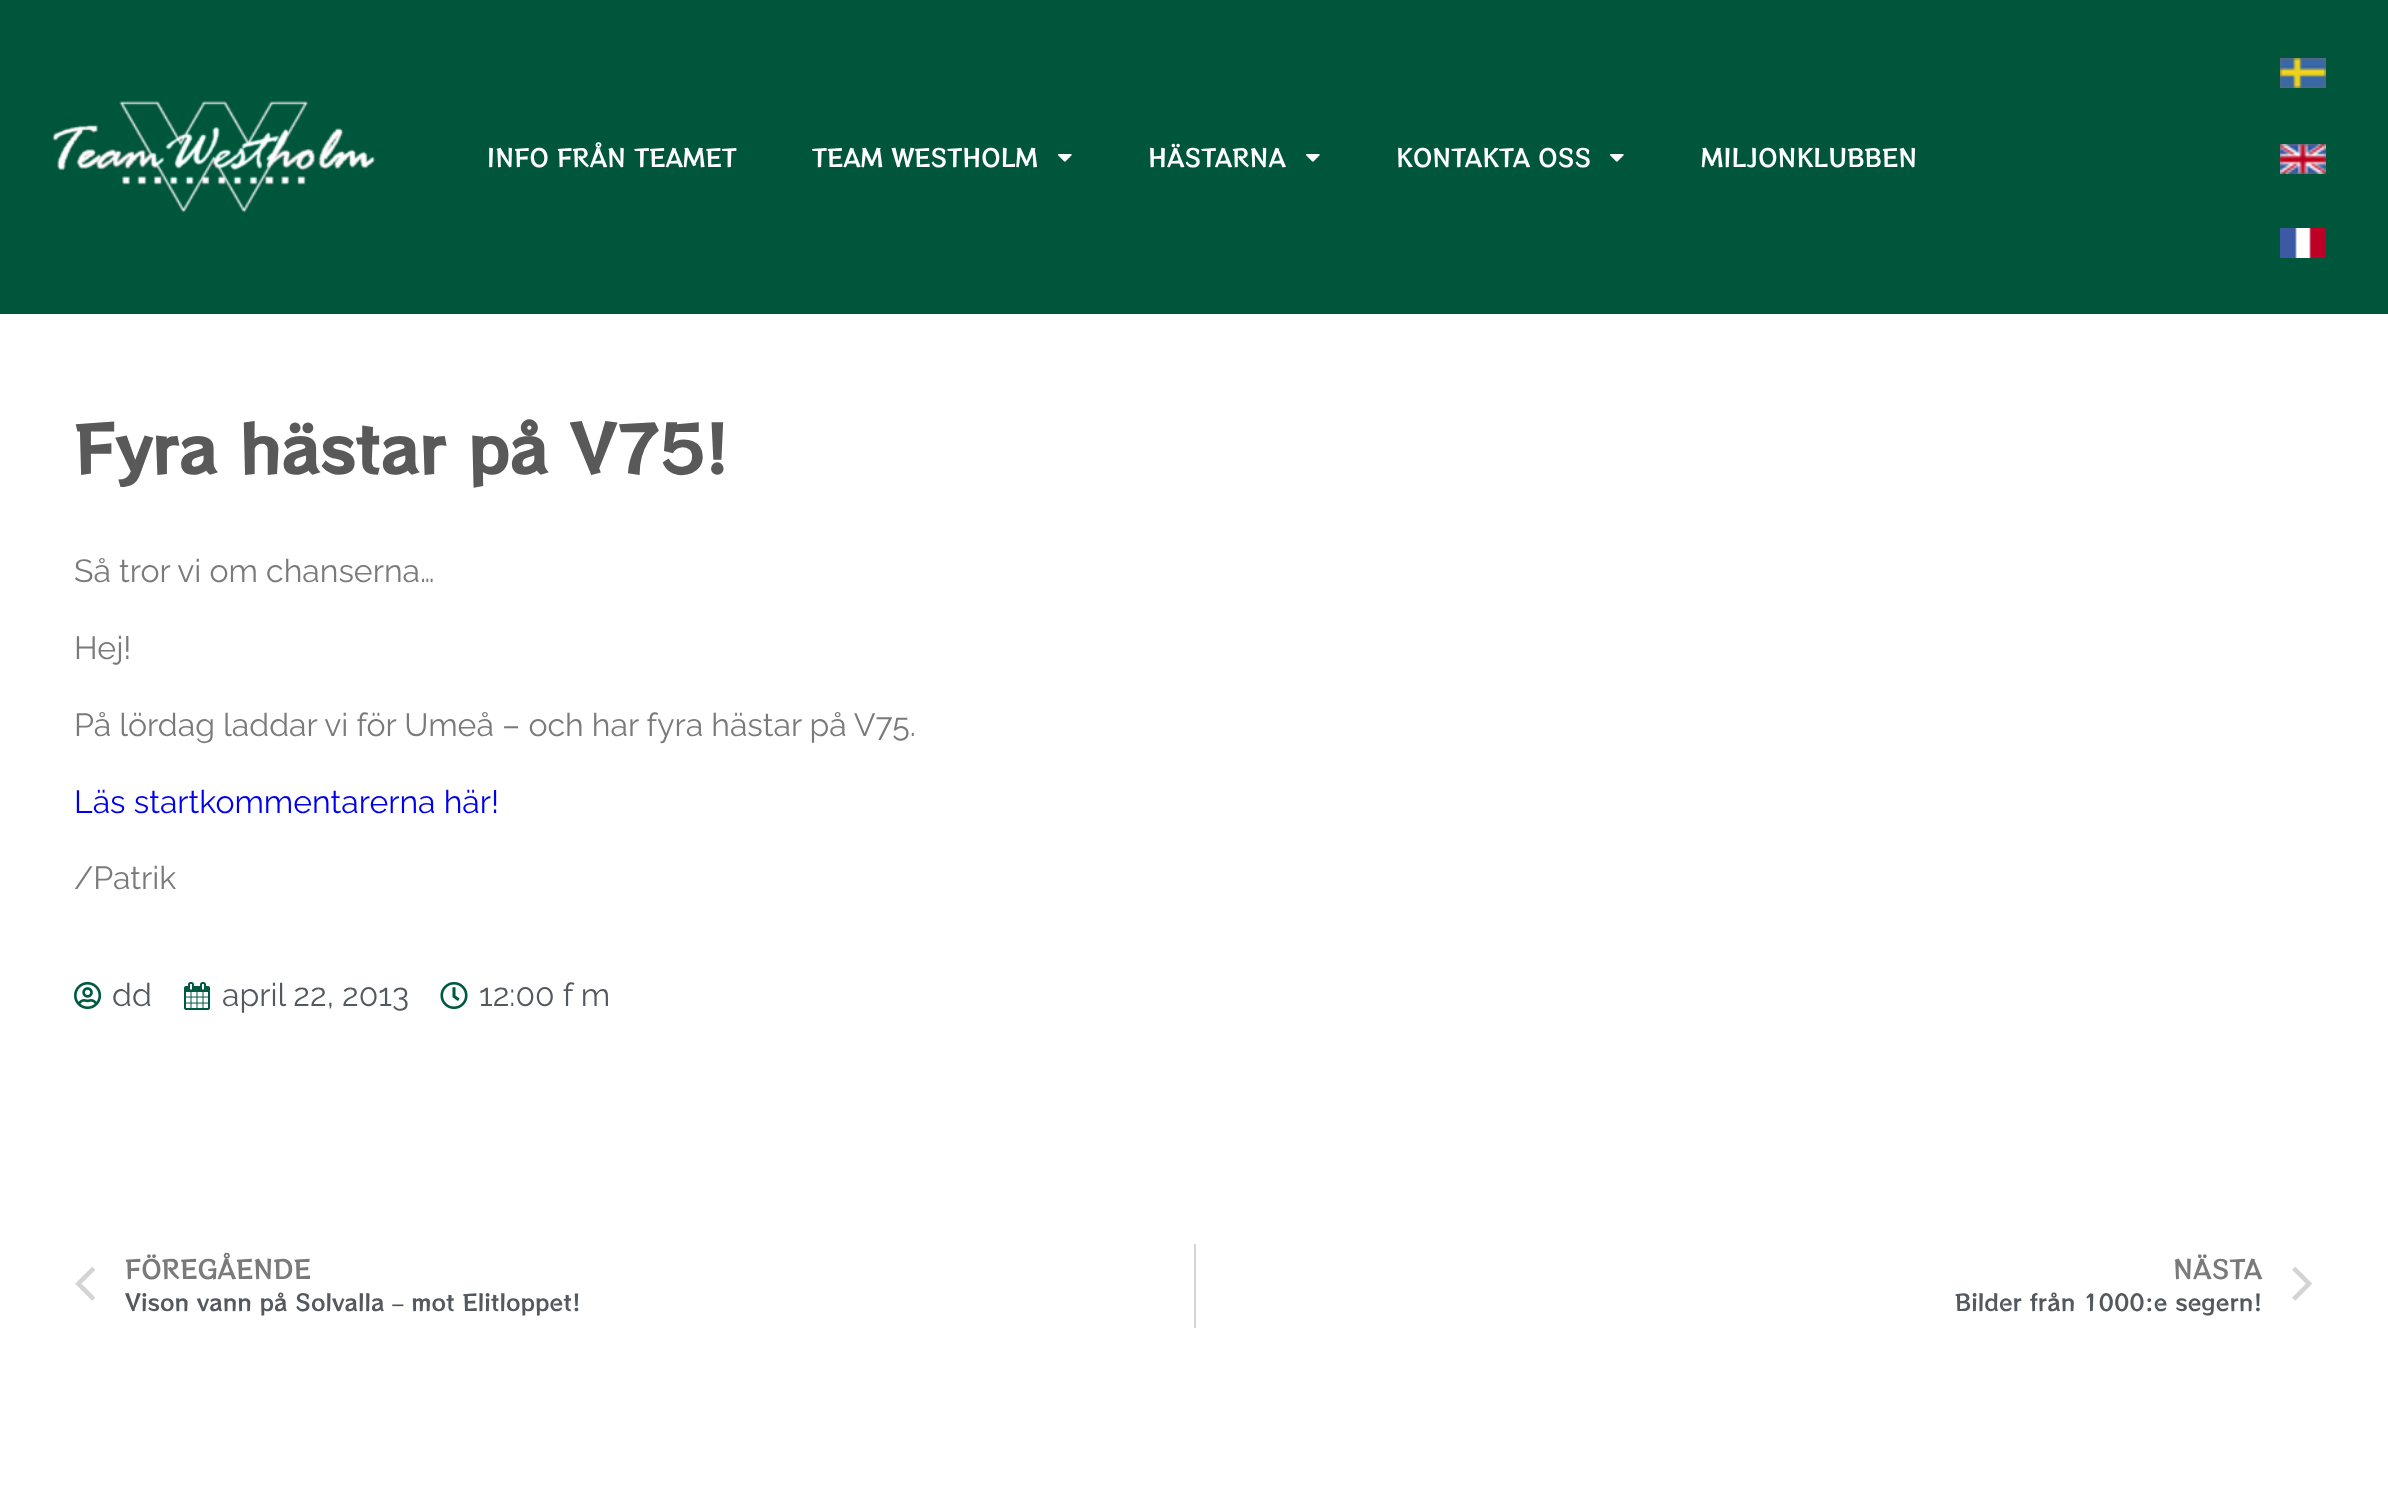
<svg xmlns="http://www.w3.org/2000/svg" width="2388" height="1487">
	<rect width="100%" height="100%" fill="#FFFFFF" />
	<rect x="0" y="0" width="2388" height="314" fill="#00563A" />
	<image x="52" y="101" width="323" height="112" href="assets/img1.png" />
	<g font-family="RocknRoll One" font-size="24" fill="#FFFFFF">
		<text x="487" y="167">INFO FRÅN TEAMET</text>
		<text x="812" y="167">TEAM WESTHOLM</text>
	</g>
	<image x="1058" y="154" width="14" height="8" href="assets/img2.png" />
	<text x="1148" y="167" font-family="RocknRoll One" font-size="24" fill="#FFFFFF">HÄSTARNA</text>
	<image x="1306" y="154" width="14" height="8" href="assets/img2.png" />
	<text x="1396" y="167" font-family="RocknRoll One" font-size="24" fill="#FFFFFF">KONTAKTA OSS</text>
	<image x="1610" y="154" width="14" height="8" href="assets/img2.png" />
	<text x="1701" y="167" font-family="RocknRoll One" font-size="24" fill="#FFFFFF">MILJONKLUBBEN</text>
	<image x="2280" y="58" width="46" height="30" href="assets/img3.png" />
	<image x="2280" y="144" width="46" height="30" href="assets/img4.png" />
	<image x="2280" y="228" width="46" height="30" href="assets/img5.png" />
	<text x="74" y="474" font-family="RocknRoll One" font-size="64" font-weight="700" fill="#595959">Fyra hästar på V75!</text>
	<g font-family="Raleway" font-size="32" fill="#7A7A7A">
		<text x="74" y="582">Så tror vi om chanserna…</text>
		<text x="74" y="659">Hej!</text>
		<text x="74" y="736">På lördag laddar vi för Umeå – och har fyra hästar på V75.</text>
	</g>
	<text x="74" y="813" font-family="Raleway" font-size="32" fill="#0000EE">Läs startkommentarerna här!</text>
	<text x="74" y="889" font-family="Raleway" font-size="32" fill="#7A7A7A">/Patrik</text>
	<image x="74" y="981" width="28" height="29" href="assets/img6.png" />
	<text x="112" y="1006" font-family="Raleway" font-size="32" fill="#54595F">dd</text>
	<image x="184" y="982" width="26" height="28" href="assets/img7.png" />
	<text x="222" y="1006" font-family="Raleway" font-size="32" fill="#54595F">april 22, 2013</text>
	<image x="440" y="982" width="28" height="27" href="assets/img8.png" />
	<text x="479" y="1006" font-family="Raleway" font-size="32" fill="#54595F">12:00 f m</text>
	<image x="75" y="1267" width="20" height="34" href="assets/img9.png" />
	<text x="125" y="1279" font-family="RocknRoll One" font-size="25.5" fill="#7A7A7A">FÖREGÅENDE</text>
	<text x="125" y="1311" font-family="RocknRoll One" font-size="22.4" fill="#54595F">Vison vann på Solvalla – mot Elitloppet!</text>
	<rect x="1194" y="1244" width="2" height="84" fill="#D4D4D4" />
	<text x="2173" y="1279" font-family="RocknRoll One" font-size="25.5" fill="#7A7A7A">NÄSTA</text>
	<text x="1955" y="1311" font-family="RocknRoll One" font-size="22.4" fill="#54595F">Bilder från 1000:e segern!</text>
	<image x="2292" y="1267" width="20" height="34" href="assets/img10.png" />
</svg>
